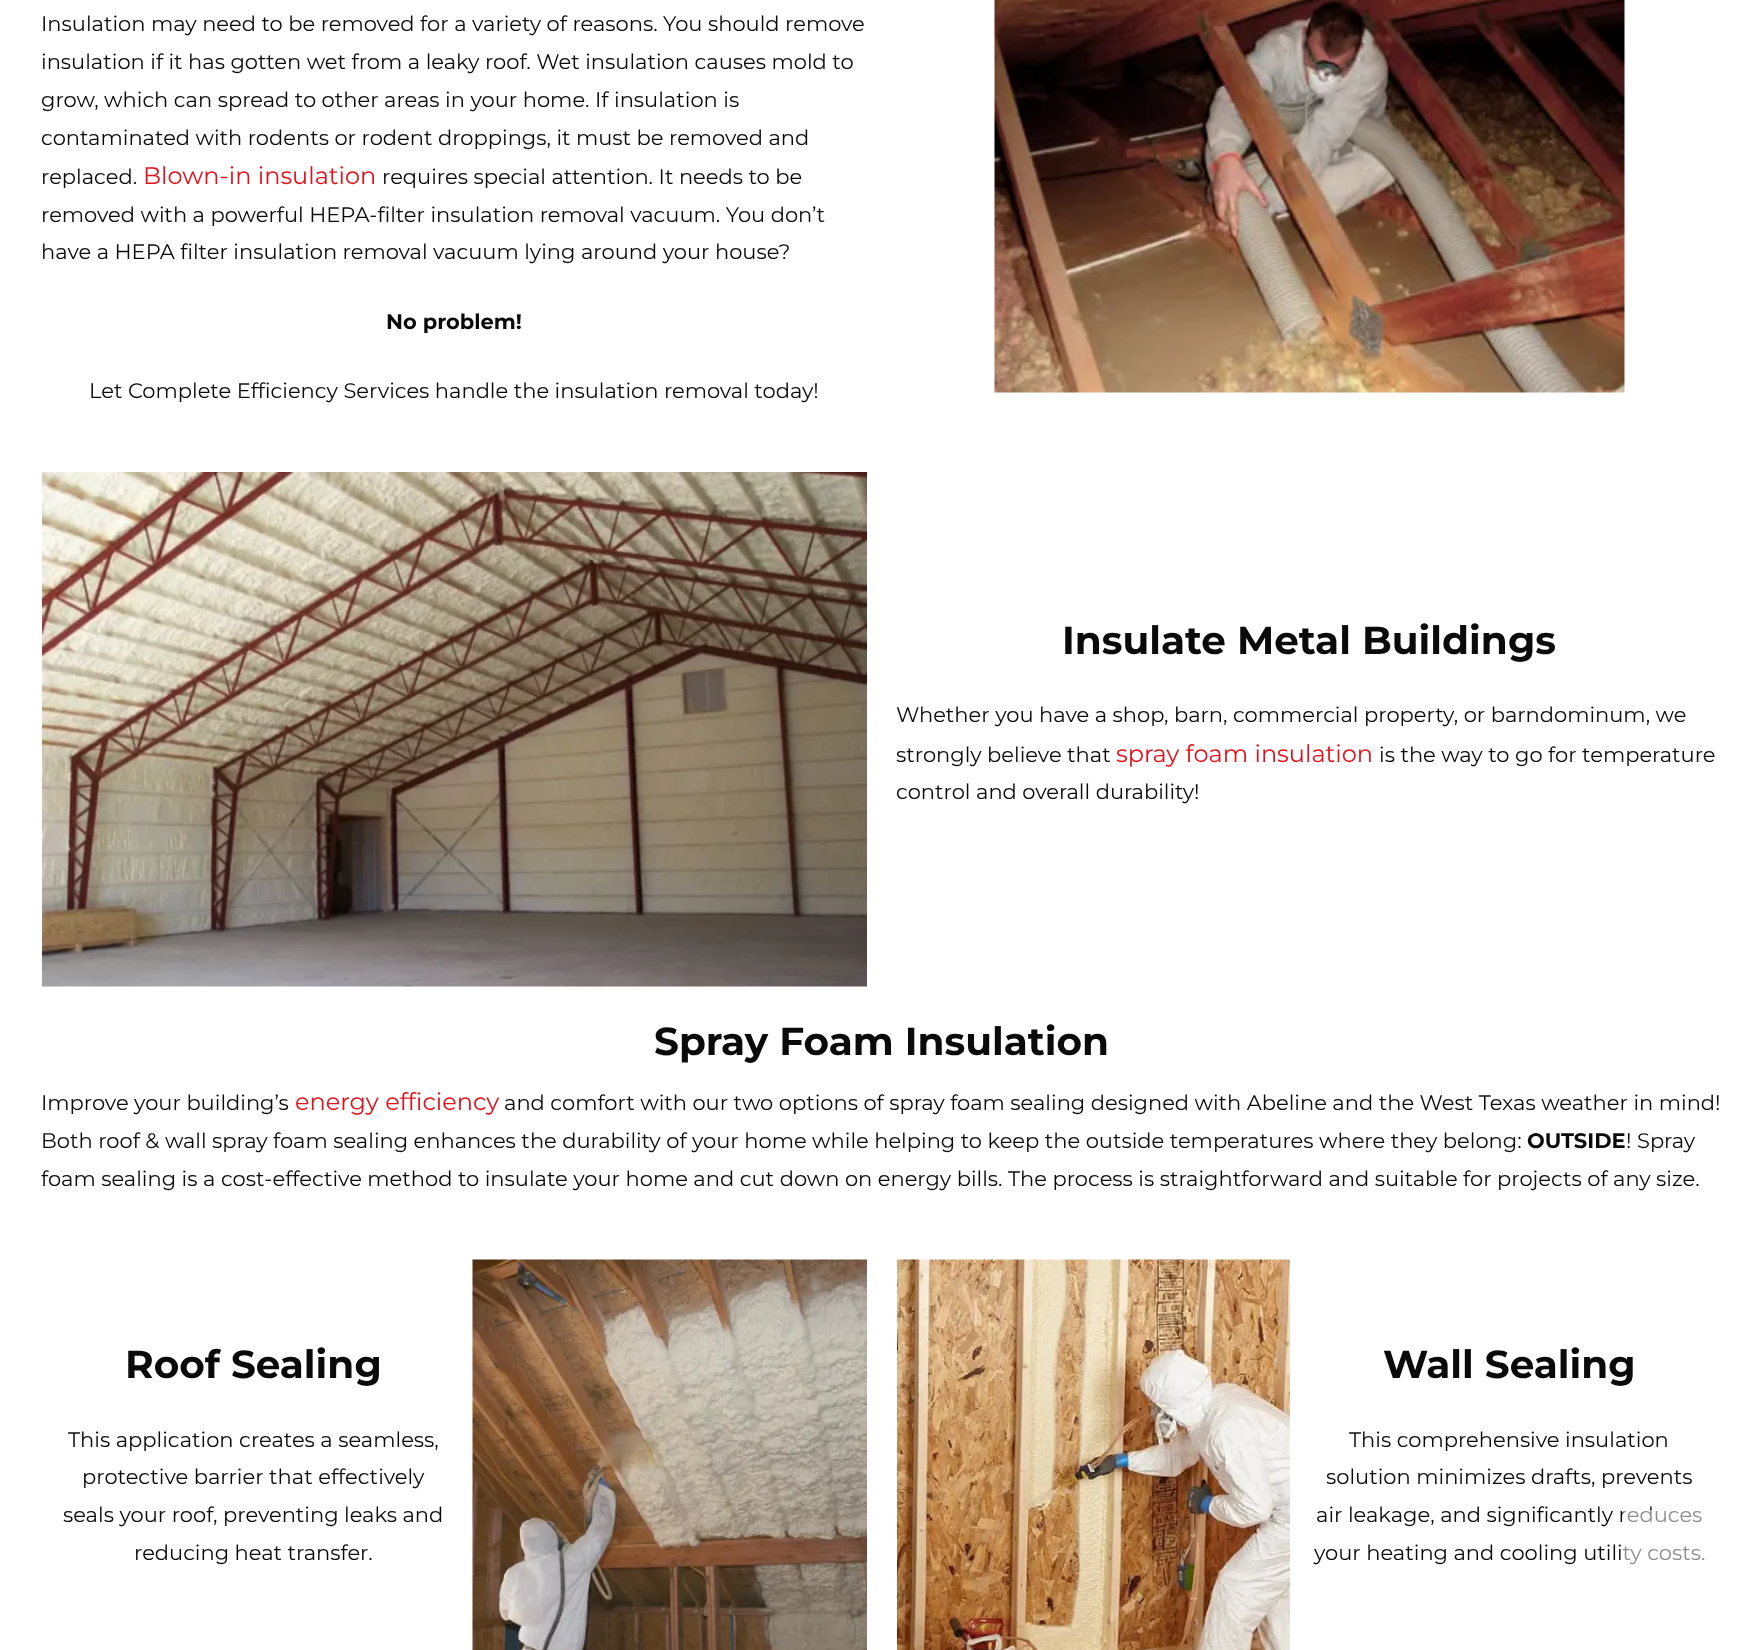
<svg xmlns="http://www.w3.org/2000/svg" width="1762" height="1650">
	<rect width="100%" height="100%" fill="#FFFFFF" />
	<g font-family="Montserrat" font-size="21" fill="#0A0A0A">
		<text x="41" y="31">Insulation may need to be removed for a variety of reasons. You should remove</text>
		<text x="41" y="69">insulation if it has gotten wet from a leaky roof. Wet insulation causes mold to</text>
		<text x="41" y="107">grow, which can spread to other areas in your home. If insulation is</text>
		<text x="41" y="145">contaminated with rodents or rodent droppings, it must be removed and</text>
		<text x="41" y="184">replaced.</text>
	</g>
	<text x="143" y="184" font-family="Montserrat" font-size="24" fill="#E3111B">Blown-in insulation</text>
	<g font-family="Montserrat" font-size="21" fill="#0A0A0A">
		<text x="382" y="184">requires special attention. It needs to be</text>
		<text x="41" y="222">removed with a powerful HEPA-filter insulation removal vacuum. You don’t</text>
		<text x="41" y="259">have a HEPA filter insulation removal vacuum lying around your house?</text>
	</g>
	<text x="386" y="329" font-family="Montserrat" font-size="21" font-weight="700" fill="#0A0A0A">No problem!</text>
	<text x="89" y="398" font-family="Montserrat" font-size="21" fill="#0A0A0A">Let Complete Efficiency Services handle the insulation removal today!</text>
	<image x="994" y="0" width="631" height="393" href="assets/img1.png" />
	<image x="42" y="472" width="825" height="515" href="assets/img2.png" />
	<text x="1062" y="654" font-family="Montserrat" font-size="39" font-weight="700" fill="#0A0A0A">Insulate Metal Buildings</text>
	<g font-family="Montserrat" font-size="21" fill="#0A0A0A">
		<text x="896" y="722">Whether you have a shop, barn, commercial property, or barndominum, we</text>
		<text x="896" y="762">strongly believe that</text>
	</g>
	<text x="1116" y="762" font-family="Montserrat" font-size="24" fill="#E3111B">spray foam insulation</text>
	<g font-family="Montserrat" font-size="21" fill="#0A0A0A">
		<text x="1379" y="762">is the way to go for temperature</text>
		<text x="896" y="799">control and overall durability!</text>
	</g>
	<text x="654" y="1055" font-family="Montserrat" font-size="39" font-weight="700" fill="#0A0A0A">Spray Foam Insulation</text>
	<text x="41" y="1110" font-family="Montserrat" font-size="21" fill="#0A0A0A">Improve your building’s</text>
	<text x="295" y="1110" font-family="Montserrat" font-size="24" fill="#E3111B">energy efficiency</text>
	<g font-family="Montserrat" font-size="21" fill="#0A0A0A">
		<text x="504" y="1110">and comfort with our two options of spray foam sealing designed with Abeline and the West Texas weather in mind!</text>
		<text x="41" y="1148">Both roof &amp; wall spray foam sealing enhances the durability of your home while helping to keep the outside temperatures where they belong:</text>
	</g>
	<text x="1527" y="1148" font-family="Montserrat" font-size="21" font-weight="700" fill="#0A0A0A">OUTSIDE</text>
	<g font-family="Montserrat" font-size="21" fill="#0A0A0A">
		<text x="1626" y="1148">! Spray</text>
		<text x="41" y="1186">foam sealing is a cost-effective method to insulate your home and cut down on energy bills. The process is straightforward and suitable for projects of any size.</text>
	</g>
	<text x="125" y="1378" font-family="Montserrat" font-size="39" font-weight="700" fill="#0A0A0A">Roof Sealing</text>
	<g font-family="Montserrat" font-size="21" fill="#0A0A0A">
		<text x="68" y="1447">This application creates a seamless,</text>
		<text x="82" y="1484">protective barrier that effectively</text>
		<text x="63" y="1522">seals your roof, preventing leaks and</text>
		<text x="134" y="1560">reducing heat transfer.</text>
	</g>
	<image x="472" y="1259" width="395" height="391" href="assets/img3.png" />
	<image x="897" y="1259" width="393" height="391" href="assets/img4.png" />
	<text x="1383" y="1378" font-family="Montserrat" font-size="39" font-weight="700" fill="#0A0A0A">Wall Sealing</text>
	<g font-family="Montserrat" font-size="21" fill="#0A0A0A">
		<text x="1349" y="1447">This comprehensive insulation</text>
		<text x="1326" y="1484">solution minimizes drafts, prevents</text>
		<text x="1316" y="1522">air leakage, and significantly reduces</text>
		<text x="1314" y="1560">your heating and cooling utility costs.</text>
	</g>
	<path d="M1714 1605H1626C1624 1605 1623 1604 1623 1602V1514C1623 1512 1624 1510 1626 1510H1714C1716 1510 1718 1512 1718 1514V1602C1718 1604 1716 1605 1714 1605Z" fill="#FFFFFF" fill-opacity="0.53" />
</svg>
